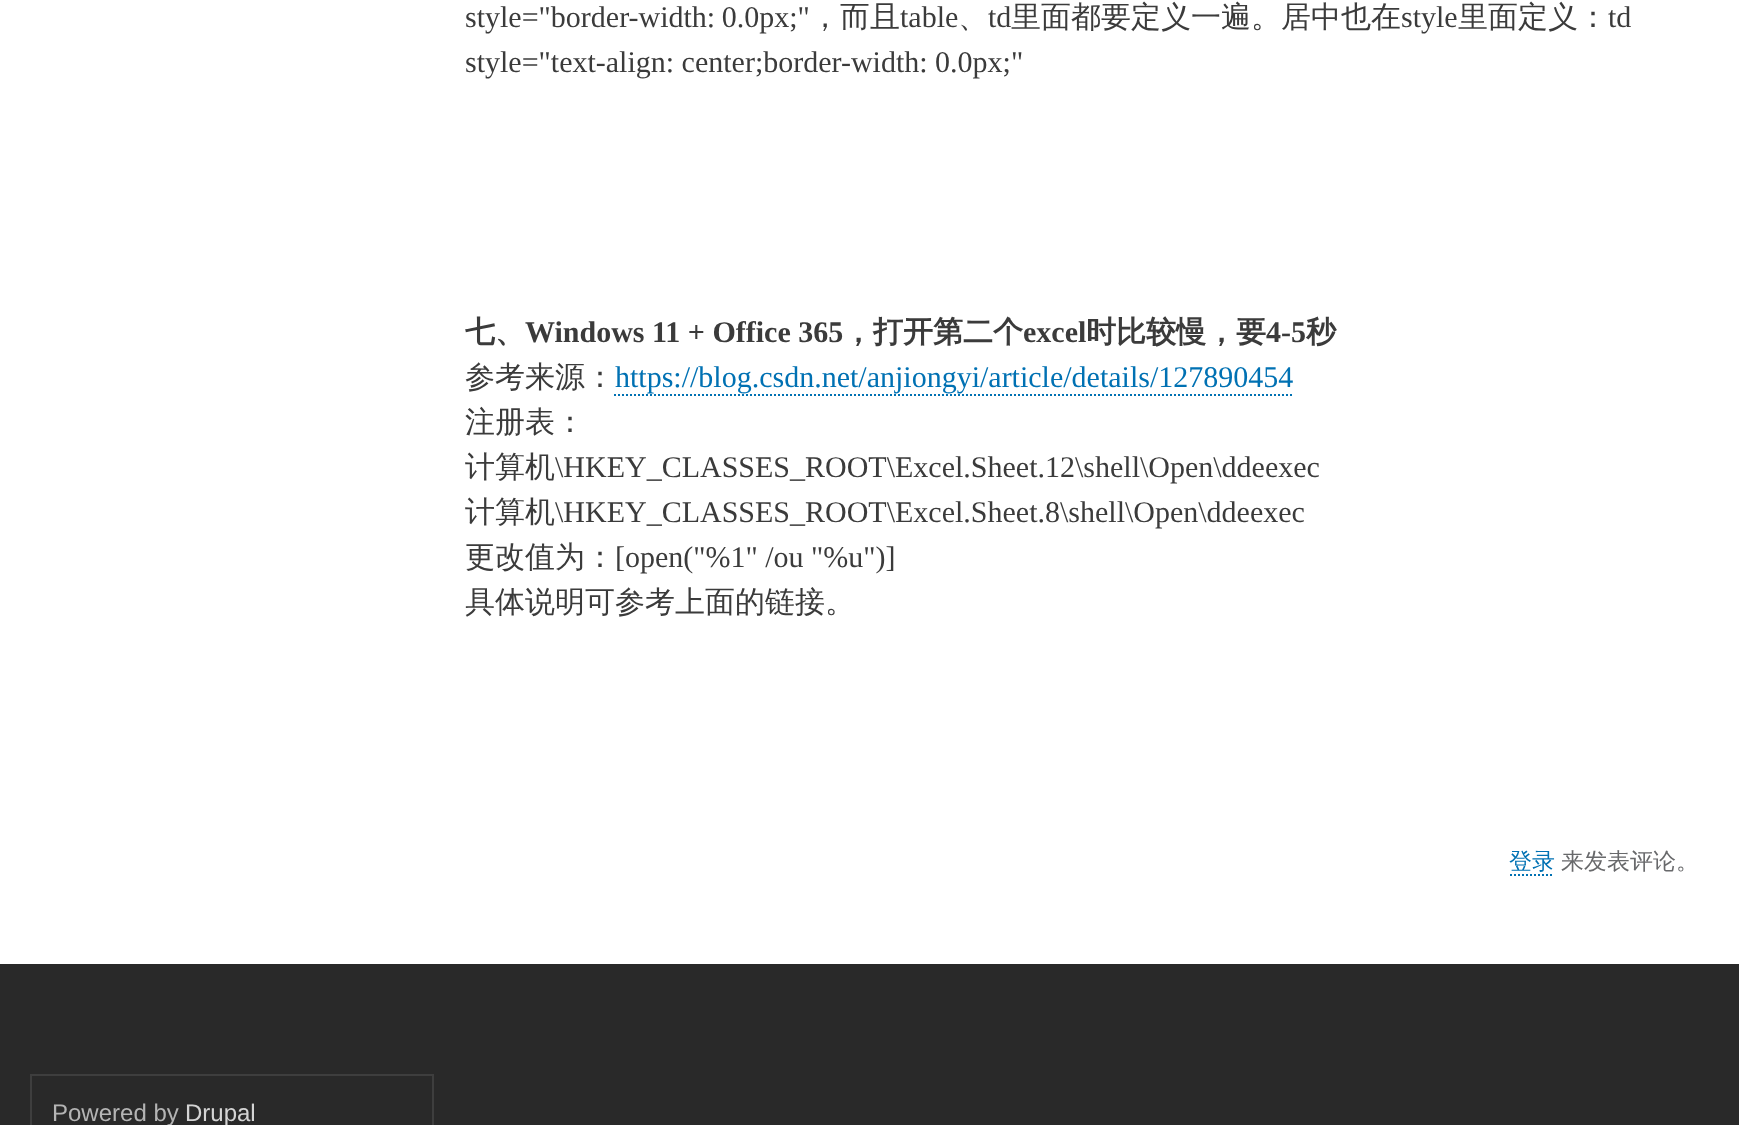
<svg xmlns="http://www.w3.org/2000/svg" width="1739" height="1125">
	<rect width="100%" height="100%" fill="#FFFFFF" />
	<text x="465" y="27" word-spacing="-1" font-family="Liberation Serif" font-size="30" fill="#3B3B3B">style="border-width: 0.0px;"</text>
	<text x="810" y="27" font-family="WenQuanYi Zen Hei" font-size="30" font-weight="500" fill="#3B3B3B">，而且</text>
	<text x="900" y="27" font-family="Liberation Serif" font-size="30" fill="#3B3B3B">table</text>
	<text x="958" y="27" font-family="WenQuanYi Zen Hei" font-size="30" font-weight="500" fill="#3B3B3B">、</text>
	<text x="988" y="27" font-family="Liberation Serif" font-size="30" fill="#3B3B3B">td</text>
	<text x="1011" y="27" font-family="WenQuanYi Zen Hei" font-size="30" font-weight="500" fill="#3B3B3B">里面都要定义一遍。居中也在</text>
	<text x="1401" y="27" font-family="Liberation Serif" font-size="30" fill="#3B3B3B">style</text>
	<text x="1458" y="27" font-family="WenQuanYi Zen Hei" font-size="30" font-weight="500" fill="#3B3B3B">里面定义：</text>
	<g font-family="Liberation Serif" font-size="30" fill="#3B3B3B">
		<text x="1608" y="27">td</text>
		<text x="465" y="72">style="text-align: center;border-width: 0.0px;"</text>
	</g>
	<text x="465" y="342" font-family="WenQuanYi Zen Hei" font-size="30" font-weight="700" fill="#3B3B3B">七、</text>
	<text x="525" y="342" font-family="Liberation Serif" font-size="30" font-weight="700" fill="#3B3B3B">Windows 11 + Office 365</text>
	<text x="843" y="342" font-family="WenQuanYi Zen Hei" font-size="30" font-weight="700" fill="#3B3B3B">，打开第二个</text>
	<text x="1023" y="342" font-family="Liberation Serif" font-size="30" font-weight="700" fill="#3B3B3B">excel</text>
	<text x="1086" y="342" font-family="WenQuanYi Zen Hei" font-size="30" font-weight="700" fill="#3B3B3B">时比较慢，要</text>
	<text x="1266" y="342" font-family="Liberation Serif" font-size="30" font-weight="700" fill="#3B3B3B">4-5</text>
	<text x="1306" y="342" font-family="WenQuanYi Zen Hei" font-size="30" font-weight="700" fill="#3B3B3B">秒</text>
	<text x="465" y="387" font-family="WenQuanYi Zen Hei" font-size="30" font-weight="500" fill="#3B3B3B">参考来源：</text>
	<text x="615" y="387" font-family="Liberation Serif" font-size="30" fill="#0071B3">https://blog.csdn.net/anjiongyi/article/details/127890454</text>
	<path d="M614 395H1292" fill="none" stroke="#0071B3" stroke-width="2" stroke-dasharray="2 2" />
	<g font-family="WenQuanYi Zen Hei" font-size="30" font-weight="500" fill="#3B3B3B">
		<text x="465" y="432">注册表：</text>
		<text x="465" y="477">计算机</text>
	</g>
	<text x="555" y="477" font-family="Liberation Serif" font-size="30" fill="#3B3B3B">\HKEY_CLASSES_ROOT\Excel.Sheet.12\shell\Open\ddeexec</text>
	<text x="465" y="522" font-family="WenQuanYi Zen Hei" font-size="30" font-weight="500" fill="#3B3B3B">计算机</text>
	<text x="555" y="522" font-family="Liberation Serif" font-size="30" fill="#3B3B3B">\HKEY_CLASSES_ROOT\Excel.Sheet.8\shell\Open\ddeexec</text>
	<text x="465" y="567" font-family="WenQuanYi Zen Hei" font-size="30" font-weight="500" fill="#3B3B3B">更改值为：</text>
	<text x="615" y="567" font-family="Liberation Serif" font-size="30" fill="#3B3B3B">[open("%1" /ou "%u")]</text>
	<text x="465" y="612" font-family="WenQuanYi Zen Hei" font-size="30" font-weight="500" fill="#3B3B3B">具体说明可参考上面的链接。</text>
	<text x="1509" y="869" font-family="WenQuanYi Zen Hei" font-size="23" font-weight="500" fill="#0071B3">登录</text>
	<path d="M1510 875H1554" fill="none" stroke="#0071B3" stroke-width="2" stroke-dasharray="2 2" />
	<text x="1561" y="869" font-family="WenQuanYi Zen Hei" font-size="23" font-weight="500" fill="#68696B">来发表评论。</text>
	<rect x="0" y="964" width="1739" height="161" fill="#292929" />
	<rect x="31" y="1075" width="402" height="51" fill="none" stroke="#3E3E3E" stroke-width="2" />
	<text x="52" y="1121" font-family="Liberation Sans" font-size="24" fill="#B4B4B4">Powered by</text>
	<text x="185" y="1121" font-family="Liberation Sans" font-size="24" fill="#D4D4D4">Drupal</text>
</svg>
